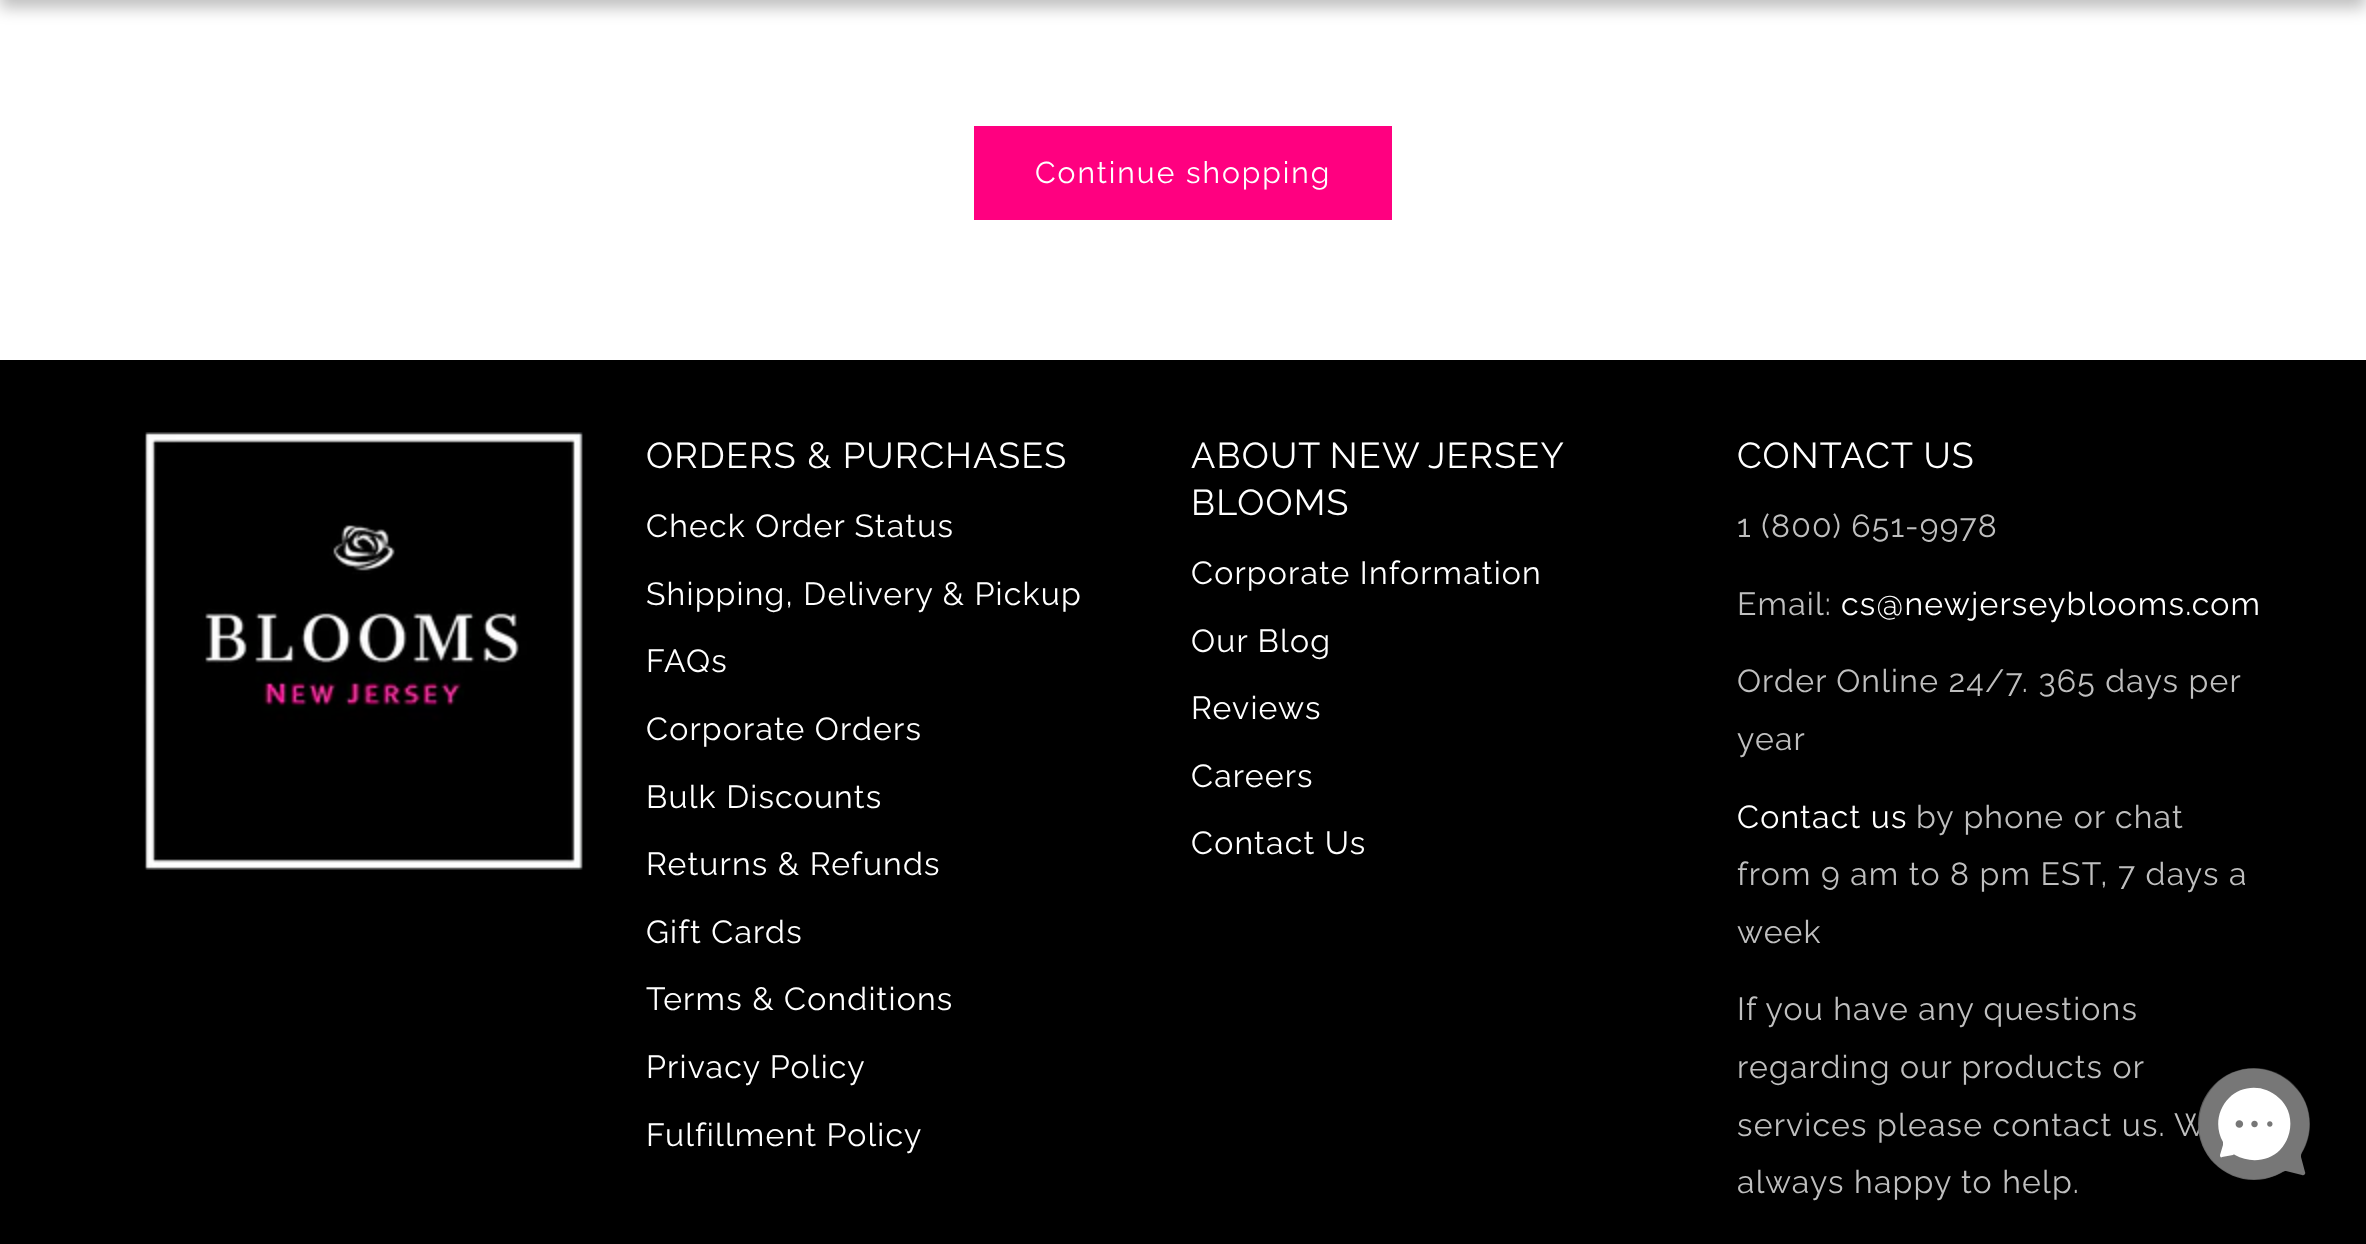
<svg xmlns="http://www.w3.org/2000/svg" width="2366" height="1244">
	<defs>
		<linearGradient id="g1" gradientUnits="userSpaceOnUse" x1="2198" y1="1180" x2="2310" y2="1068"><stop offset="0" stop-color="#777777" /><stop offset="1" stop-color="#222222" /></linearGradient>
	</defs>
	<rect width="100%" height="100%" fill="#FFFFFF" />
	<rect x="0" y="-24" width="2366" height="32" fill="#000000" fill-opacity="0.25" filter="blur(8px)" />
	<rect x="974" y="126" width="418" height="94" fill="#FF0080" />
	<text x="1035" y="183" font-family="Raleway" font-size="30" letter-spacing="2" fill="#FFFFFF">Continue shopping</text>
	<rect x="0" y="360" width="2366" height="884" fill="#000000" />
	<image x="144" y="432" width="439" height="438" href="assets/img1.png" />
	<text x="646" y="468" font-family="Raleway" font-size="36" letter-spacing="1.2" fill="#FFFFFF">ORDERS &amp; PURCHASES</text>
	<g font-family="Raleway" font-size="32" letter-spacing="1.2" fill="#FFFFFF">
		<text x="646" y="537">Check Order Status</text>
		<text x="646" y="605">Shipping, Delivery &amp; Pickup</text>
		<text x="646" y="672">FAQs</text>
		<text x="646" y="740">Corporate Orders</text>
		<text x="646" y="808">Bulk Discounts</text>
		<text x="646" y="875">Returns &amp; Refunds</text>
		<text x="646" y="943">Gift Cards</text>
		<text x="646" y="1010">Terms &amp; Conditions</text>
		<text x="646" y="1078">Privacy Policy</text>
		<text x="646" y="1146">Fulfillment Policy</text>
	</g>
	<g font-family="Raleway" font-size="36" letter-spacing="1.2" fill="#FFFFFF">
		<text x="1191" y="468" word-spacing="-1">ABOUT NEW JERSEY</text>
		<text x="1191" y="515">BLOOMS</text>
	</g>
	<g font-family="Raleway" font-size="32" letter-spacing="1.2" fill="#FFFFFF">
		<text x="1191" y="584">Corporate Information</text>
		<text x="1191" y="652">Our Blog</text>
		<text x="1191" y="719">Reviews</text>
		<text x="1191" y="787">Careers</text>
		<text x="1191" y="854">Contact Us</text>
	</g>
	<text x="1737" y="468" font-family="Raleway" font-size="36" letter-spacing="1.2" fill="#FFFFFF">CONTACT US</text>
	<g font-family="Raleway" font-size="32" letter-spacing="1.2" fill="#BFBFBF">
		<text x="1737" y="537">1 (800) 651-9978</text>
		<text x="1737" y="615">Email:</text>
	</g>
	<text x="1841" y="615" font-family="Raleway" font-size="32" letter-spacing="1.2" fill="#FFFFFF">cs@newjerseyblooms.com</text>
	<g font-family="Raleway" font-size="32" letter-spacing="1.2" fill="#BFBFBF">
		<text x="1737" y="692">Order Online 24/7. 365 days per</text>
		<text x="1737" y="750">year</text>
	</g>
	<text x="1737" y="828" font-family="Raleway" font-size="32" letter-spacing="1.2" fill="#FFFFFF">Contact us</text>
	<g font-family="Raleway" font-size="32" letter-spacing="1.2" fill="#BFBFBF">
		<text x="1916" y="828">by phone or chat</text>
		<text x="1737" y="885">from 9 am to 8 pm EST, 7 days a</text>
		<text x="1737" y="943">week</text>
		<text x="1737" y="1020">If you have any questions</text>
		<text x="1737" y="1078">regarding our products or</text>
		<text x="1737" y="1136">services please contact us. W</text>
		<text x="1737" y="1193">always happy to help.</text>
	</g>
	<rect x="2198" y="1074" width="112" height="112" rx="56" fill="#000000" fill-opacity="0.2" filter="blur(6px)" />
	<circle cx="2254" cy="1124" r="56" fill="url(#g1)" />
	<path d="M2293 1085C2271 1063 2235 1063 2214 1086C2194 1108 2194 1142 2215 1163C2233 1181 2261 1184 2282 1172C2284 1171 2285 1171 2286 1171L2302 1175C2304 1176 2306 1174 2305 1172L2301 1157C2301 1155 2301 1154 2302 1152C2314 1131 2312 1103 2293 1085Z" fill="#777777" />
	<path d="M2280 1150C2294 1135 2294 1111 2279 1098C2264 1084 2242 1085 2229 1098C2217 1110 2215 1128 2223 1142C2223 1143 2223 1144 2223 1145L2220 1155C2220 1157 2221 1158 2222 1157L2233 1155C2234 1154 2235 1155 2235 1155C2249 1163 2268 1162 2280 1150Z" fill="#FFFFFF" />
	<image x="2235" y="1120" width="38" height="8" href="assets/img2.png" />
</svg>
